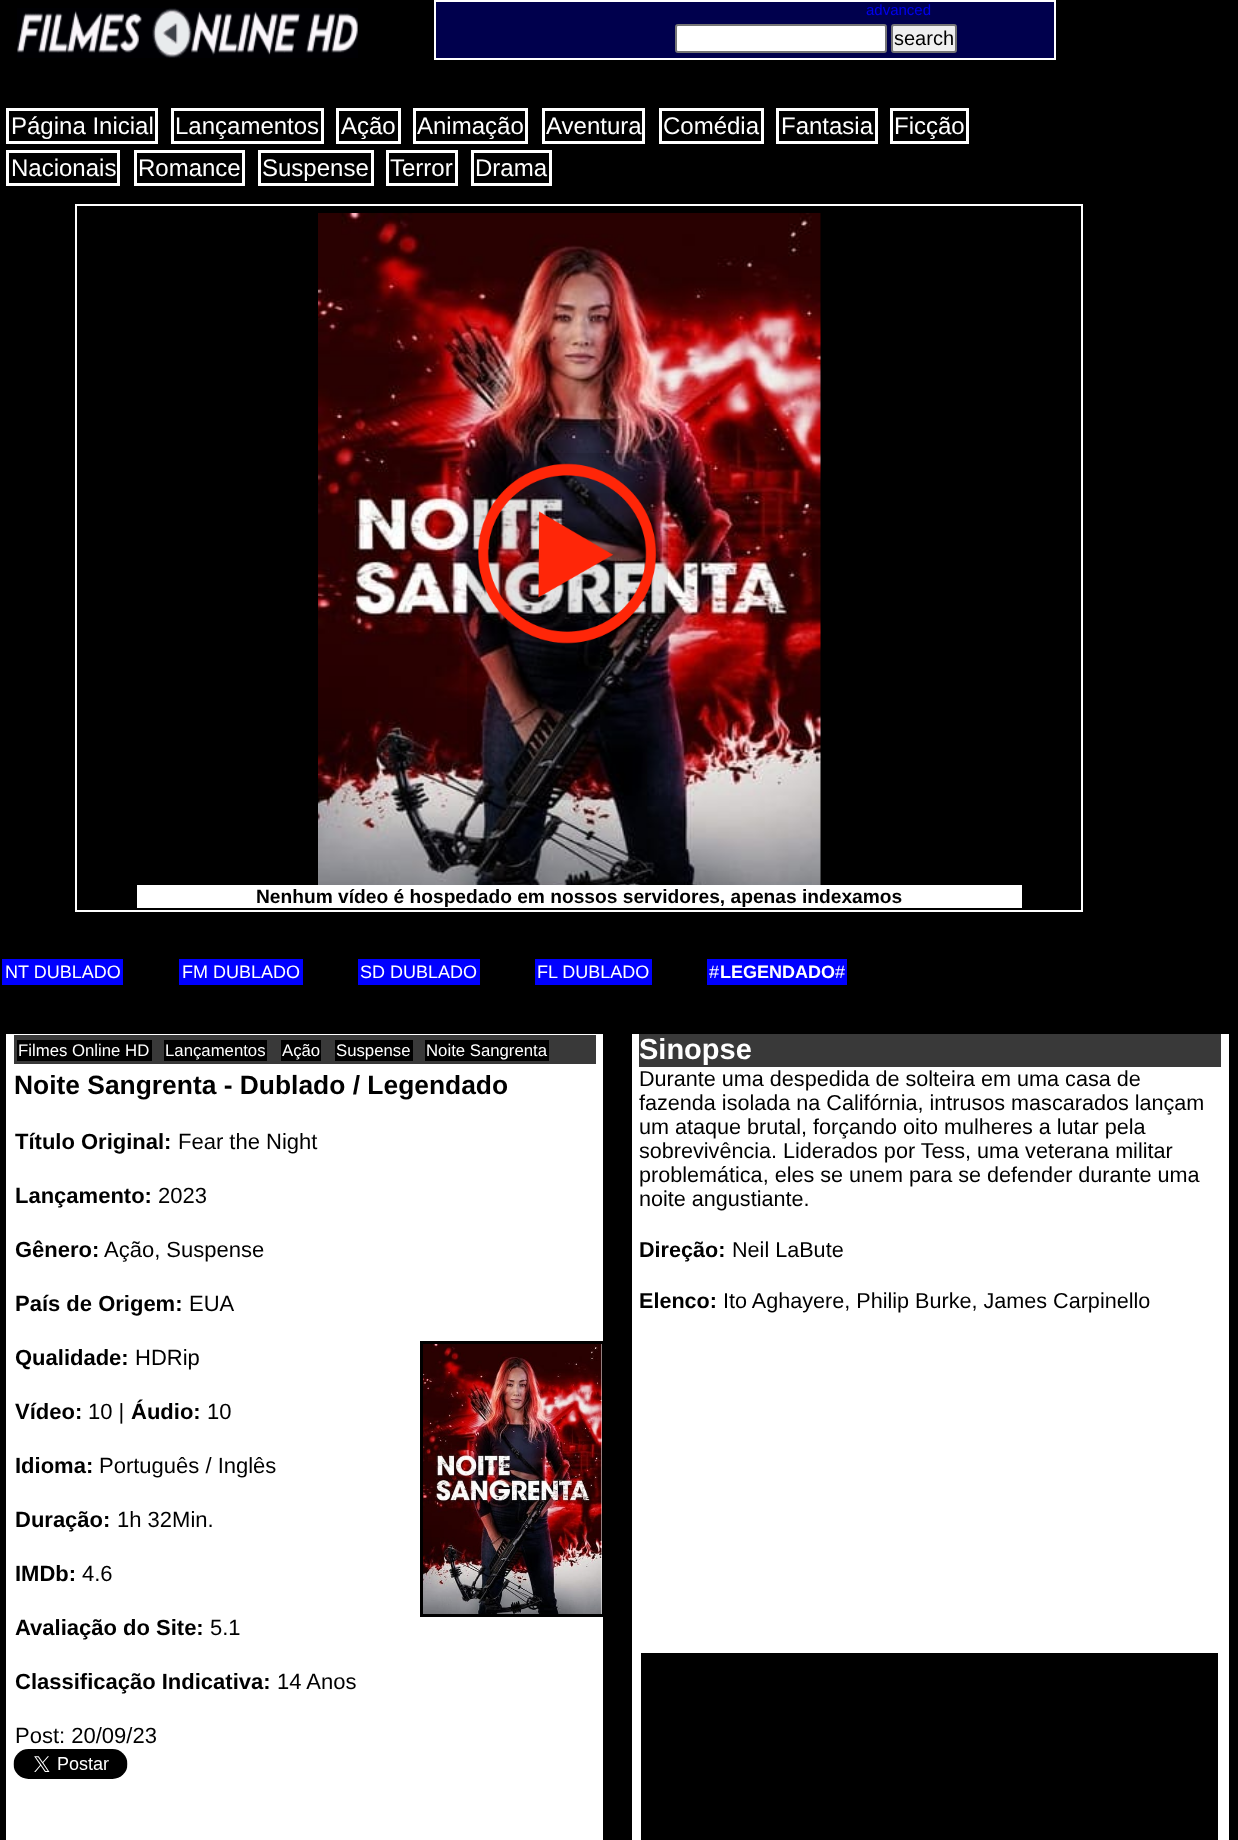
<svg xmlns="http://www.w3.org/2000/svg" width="1238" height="1840">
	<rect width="100%" height="100%" fill="#000000" />
	<image x="17" y="8" width="341" height="50" href="assets/img1.png" />
	<rect x="435" y="1" width="620" height="58" fill="#00004D" stroke="#FFFFFF" stroke-width="2" />
	<text x="866" y="15" font-family="Liberation Sans" font-size="15" fill="#0000EE">advanced</text>
	<rect x="676" y="25" width="210" height="27" rx="2" fill="#FFFFFF" stroke="#767676" stroke-width="2" />
	<rect x="892" y="25" width="64" height="27" rx="2" fill="#EFEFEF" stroke="#767676" stroke-width="2" />
	<text x="894" y="45" font-family="Liberation Sans" font-size="20" fill="#000000">search</text>
	<rect x="7.5" y="109.5" width="149" height="33" fill="none" stroke="#FFFFFF" stroke-width="3" />
	<text x="11" y="134" font-family="Liberation Sans" font-size="24" fill="#FFFFFF">Página Inicial</text>
	<rect x="172.5" y="109.5" width="150" height="33" fill="none" stroke="#FFFFFF" stroke-width="3" />
	<text x="175" y="134" font-family="Liberation Sans" font-size="24" fill="#FFFFFF">Lançamentos</text>
	<rect x="337.5" y="109.5" width="62" height="33" fill="none" stroke="#FFFFFF" stroke-width="3" />
	<text x="341" y="134" font-family="Liberation Sans" font-size="24" fill="#FFFFFF">Ação</text>
	<rect x="414.5" y="109.5" width="112" height="33" fill="none" stroke="#FFFFFF" stroke-width="3" />
	<text x="417" y="134" font-family="Liberation Sans" font-size="24" fill="#FFFFFF">Animação</text>
	<rect x="543.5" y="109.5" width="100" height="33" fill="none" stroke="#FFFFFF" stroke-width="3" />
	<text x="546" y="134" font-family="Liberation Sans" font-size="24" fill="#FFFFFF">Aventura</text>
	<rect x="660.5" y="109.5" width="102" height="33" fill="none" stroke="#FFFFFF" stroke-width="3" />
	<text x="663" y="134" font-family="Liberation Sans" font-size="24" fill="#FFFFFF">Comédia</text>
	<rect x="777.5" y="109.5" width="99" height="33" fill="none" stroke="#FFFFFF" stroke-width="3" />
	<text x="781" y="134" font-family="Liberation Sans" font-size="24" fill="#FFFFFF">Fantasia</text>
	<rect x="891.5" y="109.5" width="76" height="33" fill="none" stroke="#FFFFFF" stroke-width="3" />
	<text x="894" y="134" font-family="Liberation Sans" font-size="24" fill="#FFFFFF">Ficção</text>
	<rect x="7.5" y="151.5" width="111" height="33" fill="none" stroke="#FFFFFF" stroke-width="3" />
	<text x="11" y="176" font-family="Liberation Sans" font-size="24" fill="#FFFFFF">Nacionais</text>
	<rect x="135.5" y="151.5" width="108" height="33" fill="none" stroke="#FFFFFF" stroke-width="3" />
	<text x="138" y="176" font-family="Liberation Sans" font-size="24" fill="#FFFFFF">Romance</text>
	<rect x="259.5" y="151.5" width="113" height="33" fill="none" stroke="#FFFFFF" stroke-width="3" />
	<text x="262" y="176" font-family="Liberation Sans" font-size="24" fill="#FFFFFF">Suspense</text>
	<rect x="387.5" y="151.5" width="69" height="33" fill="none" stroke="#FFFFFF" stroke-width="3" />
	<text x="390" y="176" font-family="Liberation Sans" font-size="24" fill="#FFFFFF">Terror</text>
	<rect x="472.5" y="151.5" width="78" height="33" fill="none" stroke="#FFFFFF" stroke-width="3" />
	<text x="475" y="176" font-family="Liberation Sans" font-size="24" fill="#FFFFFF">Drama</text>
	<rect x="76" y="205" width="1006" height="706" fill="none" stroke="#FFFFFF" stroke-width="2" />
	<image x="318" y="213" width="503" height="672" href="assets/img2.png" />
	<rect x="467" y="453" width="201" height="347" fill="#020000" fill-opacity="0.1" />
	<image x="478" y="463" width="179" height="181" href="assets/img3.png" />
	<rect x="137" y="885" width="885" height="23" fill="#FFFFFF" />
	<text x="256" y="903" font-family="Liberation Sans" font-size="19.2" font-weight="700" fill="#000000">Nenhum vídeo é hospedado em nossos servidores, apenas indexamos</text>
	<rect x="2" y="959" width="121" height="26" fill="#0000FF" />
	<text x="5" y="978" font-family="Liberation Sans" font-size="18" fill="#FFFFFF">NT DUBLADO</text>
	<rect x="179" y="959" width="124" height="26" fill="#0000FF" />
	<text x="182" y="978" font-family="Liberation Sans" font-size="18" fill="#FFFFFF">FM DUBLADO</text>
	<rect x="358" y="959" width="122" height="26" fill="#0000FF" />
	<text x="360" y="978" font-family="Liberation Sans" font-size="18" fill="#FFFFFF">SD DUBLADO</text>
	<rect x="535" y="959" width="117" height="26" fill="#0000FF" />
	<text x="537" y="978" font-family="Liberation Sans" font-size="18" fill="#FFFFFF">FL DUBLADO</text>
	<rect x="707" y="959" width="140" height="26" fill="#0000FF" />
	<text x="709" y="978" font-family="Liberation Sans" font-size="18" fill="#FFFFFF">#</text>
	<text x="720" y="978" font-family="Liberation Sans" font-size="18" font-weight="700" fill="#FFFFFF">LEGENDADO</text>
	<text x="835" y="978" font-family="Liberation Sans" font-size="18" fill="#FFFFFF">#</text>
	<rect x="6" y="1034" width="597" height="806" fill="#FFFFFF" />
	<rect x="14" y="1035" width="582" height="29" fill="#393939" />
	<rect x="17" y="1040" width="135" height="21" fill="#000000" />
	<text x="18" y="1056" font-family="Liberation Sans" font-size="16.75" fill="#FFFFFF">Filmes Online HD</text>
	<rect x="164" y="1040" width="103" height="21" fill="#000000" />
	<text x="165" y="1056" font-family="Liberation Sans" font-size="16.75" fill="#FFFFFF">Lançamentos</text>
	<rect x="281" y="1040" width="40" height="21" fill="#000000" />
	<text x="282" y="1056" font-family="Liberation Sans" font-size="16.75" fill="#FFFFFF">Ação</text>
	<rect x="335" y="1040" width="78" height="21" fill="#000000" />
	<text x="336" y="1056" font-family="Liberation Sans" font-size="16.75" fill="#FFFFFF">Suspense</text>
	<rect x="425" y="1040" width="124" height="21" fill="#000000" />
	<text x="426" y="1056" font-family="Liberation Sans" font-size="16.75" fill="#FFFFFF">Noite Sangrenta</text>
	<text x="14" y="1094" font-family="Liberation Sans" font-size="26.4" font-weight="700" fill="#000000">Noite Sangrenta - Dublado / Legendado</text>
	<text x="15" y="1149" font-family="Liberation Sans" font-size="22" font-weight="700" fill="#000000">Título Original:</text>
	<text x="178" y="1149" font-family="Liberation Sans" font-size="22" fill="#000000">Fear the Night</text>
	<text x="15" y="1203" font-family="Liberation Sans" font-size="22" font-weight="700" fill="#000000">Lançamento:</text>
	<text x="158" y="1203" font-family="Liberation Sans" font-size="22" fill="#000000">2023</text>
	<text x="15" y="1257" font-family="Liberation Sans" font-size="22" font-weight="700" fill="#000000">Gênero:</text>
	<text x="104" y="1257" font-family="Liberation Sans" font-size="22" fill="#000000">Ação, Suspense</text>
	<text x="15" y="1311" font-family="Liberation Sans" font-size="22" font-weight="700" fill="#000000">País de Origem:</text>
	<text x="189" y="1311" font-family="Liberation Sans" font-size="22" fill="#000000">EUA</text>
	<text x="15" y="1365" font-family="Liberation Sans" font-size="22" font-weight="700" fill="#000000">Qualidade:</text>
	<text x="135" y="1365" font-family="Liberation Sans" font-size="22" fill="#000000">HDRip</text>
	<rect x="421.5" y="1342.5" width="182" height="273" fill="none" stroke="#000000" stroke-width="3" />
	<image x="423" y="1344" width="179" height="270" href="assets/img4.png" />
	<text x="15" y="1419" font-family="Liberation Sans" font-size="22" font-weight="700" fill="#000000">Vídeo:</text>
	<text x="88" y="1419" font-family="Liberation Sans" font-size="22" fill="#000000">10 |</text>
	<text x="131" y="1419" font-family="Liberation Sans" font-size="22" font-weight="700" fill="#000000">Áudio:</text>
	<text x="207" y="1419" font-family="Liberation Sans" font-size="22" fill="#000000">10</text>
	<text x="15" y="1473" font-family="Liberation Sans" font-size="22" font-weight="700" fill="#000000">Idioma:</text>
	<text x="99" y="1473" font-family="Liberation Sans" font-size="22" fill="#000000">Português / Inglês</text>
	<text x="15" y="1527" font-family="Liberation Sans" font-size="22" font-weight="700" fill="#000000">Duração:</text>
	<text x="117" y="1527" font-family="Liberation Sans" font-size="22" fill="#000000">1h 32Min.</text>
	<text x="15" y="1581" font-family="Liberation Sans" font-size="22" font-weight="700" fill="#000000">IMDb:</text>
	<text x="82" y="1581" font-family="Liberation Sans" font-size="22" fill="#000000">4.6</text>
	<text x="15" y="1635" font-family="Liberation Sans" font-size="22" font-weight="700" fill="#000000">Avaliação do Site:</text>
	<text x="210" y="1635" font-family="Liberation Sans" font-size="22" fill="#000000">5.1</text>
	<text x="15" y="1689" font-family="Liberation Sans" font-size="22" font-weight="700" fill="#000000">Classificação Indicativa:</text>
	<g font-family="Liberation Sans" font-size="22" fill="#000000">
		<text x="277" y="1689">14 Anos</text>
		<text x="15" y="1743">Post: 20/09/23</text>
	</g>
	<image x="13" y="1749" width="115" height="30" href="assets/img5.png" />
	<rect x="632" y="1034" width="597" height="806" fill="#FFFFFF" />
	<rect x="639" y="1034" width="582" height="33" fill="#393939" />
	<text x="639" y="1059" font-family="Liberation Sans" font-size="29" font-weight="700" fill="#FFFFFF">Sinopse</text>
	<g font-family="Liberation Sans" font-size="21.6" fill="#000000">
		<text x="639" y="1086">Durante uma despedida de solteira em uma casa de</text>
		<text x="639" y="1110">fazenda isolada na Califórnia, intrusos mascarados lançam</text>
		<text x="639" y="1134">um ataque brutal, forçando oito mulheres a lutar pela</text>
		<text x="639" y="1158">sobrevivência. Liderados por Tess, uma veterana militar</text>
		<text x="639" y="1182">problemática, eles se unem para se defender durante uma</text>
		<text x="639" y="1206">noite angustiante.</text>
	</g>
	<text x="639" y="1257" font-family="Liberation Sans" font-size="21.6" font-weight="700" fill="#000000">Direção:</text>
	<text x="732" y="1257" font-family="Liberation Sans" font-size="21.6" fill="#000000">Neil LaBute</text>
	<text x="639" y="1308" font-family="Liberation Sans" font-size="21.6" font-weight="700" fill="#000000">Elenco:</text>
	<text x="723" y="1308" font-family="Liberation Sans" font-size="21.6" fill="#000000">Ito Aghayere, Philip Burke, James Carpinello</text>
	<rect x="641" y="1653" width="577" height="187" fill="#000000" />
</svg>
